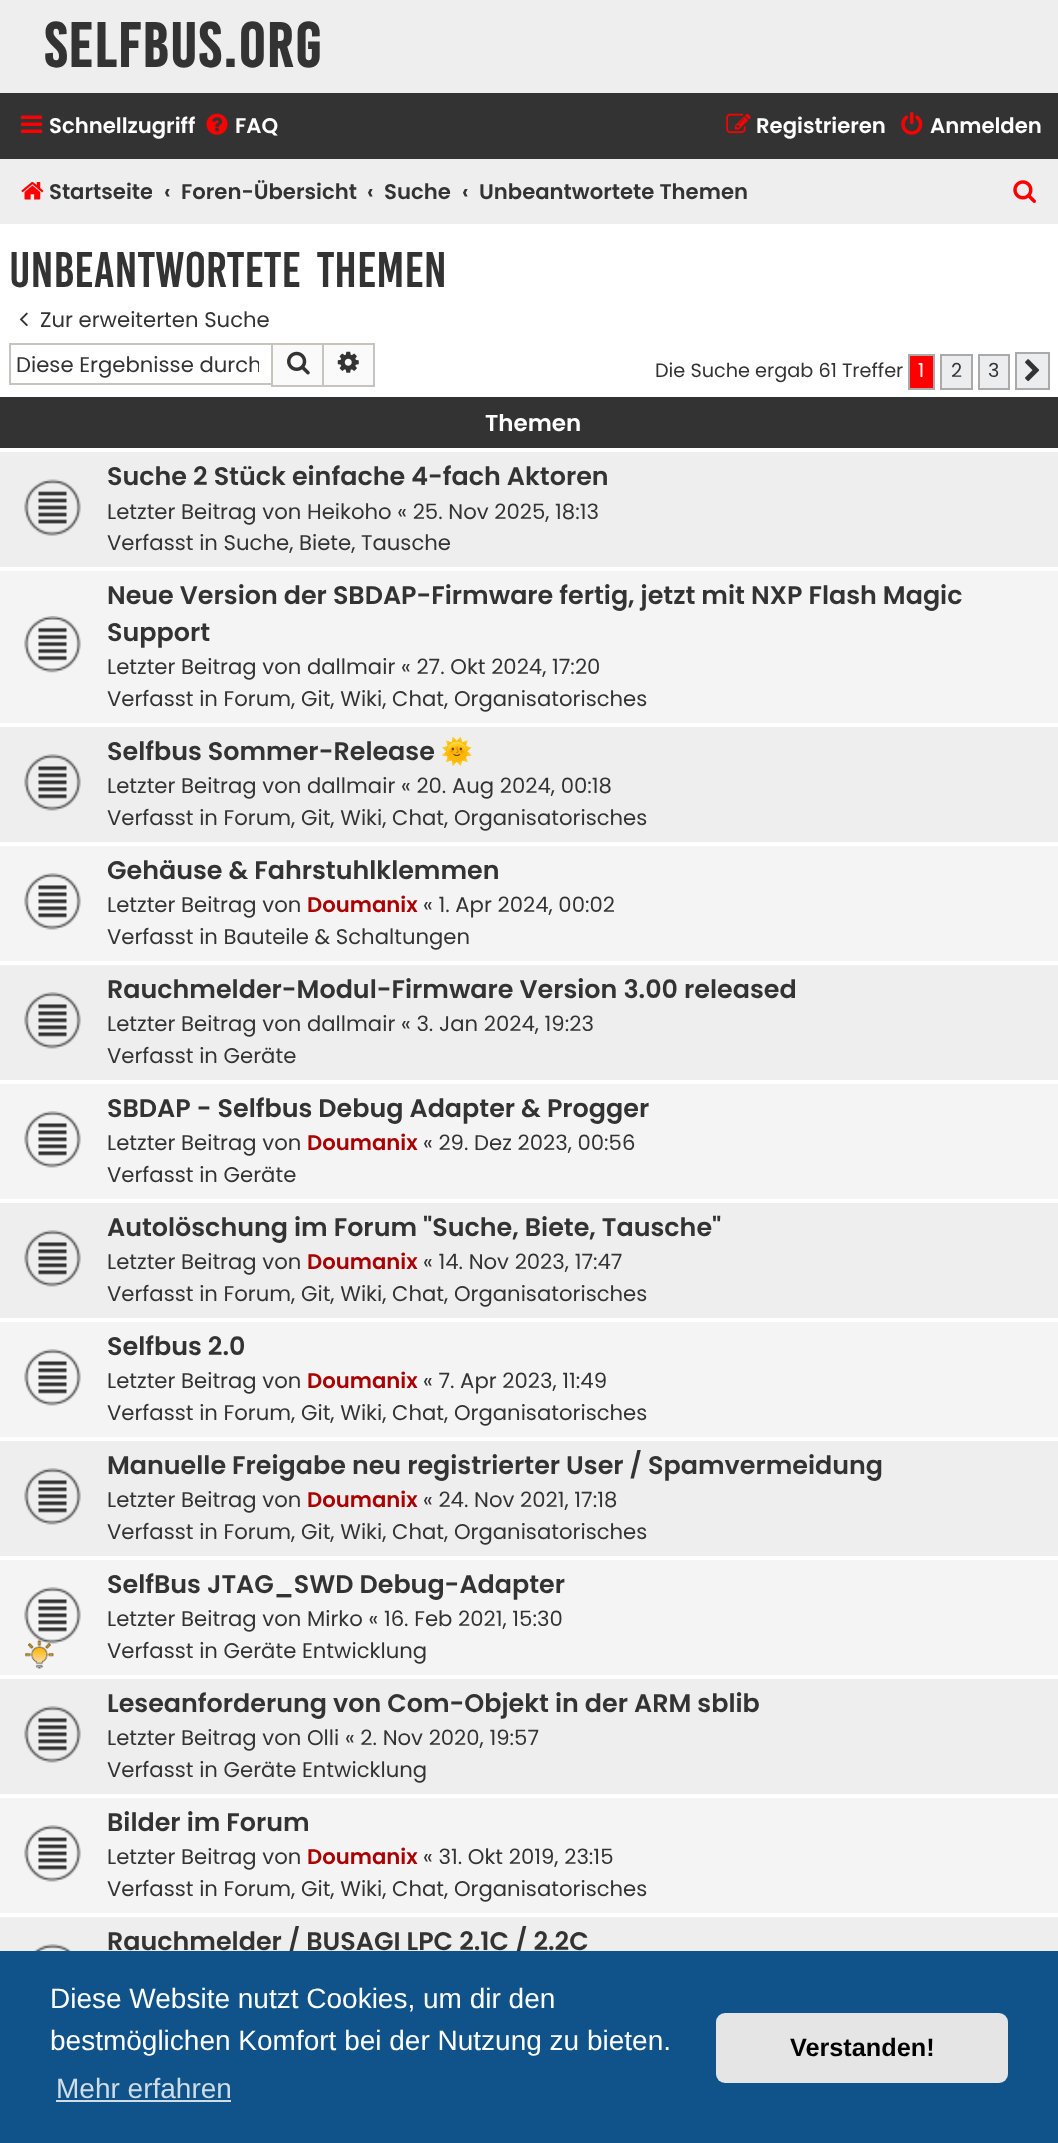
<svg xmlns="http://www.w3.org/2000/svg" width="1058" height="2143">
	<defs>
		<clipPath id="clip1"><rect x="18" y="170" width="134" height="45" /></clipPath>
		<clipPath id="clip2"><rect x="16" y="348" width="243" height="32" /></clipPath>
	</defs>
	<rect width="100%" height="100%" fill="#FFFFFF" />
	<rect x="0" y="0" width="1058" height="93" fill="#EEEEEE" />
	<text x="44" y="67" font-family="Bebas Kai" font-size="48" font-weight="700" letter-spacing="1.75" fill="#333333">selfbus.org</text>
	<rect x="0" y="93" width="1058" height="66" fill="#333333" />
	<image x="21" y="115" width="21" height="18" href="assets/img1.png" />
	<text x="49" y="133" font-family="Poppins" font-size="21.2" font-weight="600" fill="#FFFFFF">Schnellzugriff</text>
	<image x="206" y="113" width="22" height="22" href="assets/img2.png" />
	<text x="235" y="133" font-family="Poppins" font-size="21.2" font-weight="600" fill="#FFFFFF">FAQ</text>
	<image x="726" y="113" width="25" height="20" href="assets/img3.png" />
	<text x="756" y="133" font-family="Poppins" font-size="21.2" font-weight="600" fill="#FFFFFF">Registrieren</text>
	<image x="901" y="112" width="22" height="23" href="assets/img4.png" />
	<text x="930" y="133" font-family="Poppins" font-size="21.2" font-weight="600" fill="#FFFFFF">Anmelden</text>
	<rect x="0" y="159" width="1058" height="65" fill="#EEEEEE" />
	<image x="21" y="182" width="23" height="18" href="assets/img5.png" />
	<g clip-path="url(#clip1)">
		<text x="49" y="199" font-family="Poppins" font-size="21.2" font-weight="600" fill="#333333">Startseite</text>
	</g>
	<g font-family="Poppins" font-size="21.2" font-weight="600" fill="#333333">
		<text x="164" y="199">‹</text>
		<text x="181" y="199">Foren-Übersicht</text>
		<text x="367" y="199">‹</text>
		<text x="384" y="199">Suche</text>
		<text x="462" y="199">‹</text>
		<text x="479" y="199">Unbeantwortete Themen</text>
	</g>
	<image x="1013" y="180" width="23" height="23" href="assets/img6.png" />
	<text x="9" y="287" word-spacing="7" font-family="Bebas Kai" font-size="38.5" fill="#333333">Unbeantwortete Themen</text>
	<image x="19" y="312" width="9" height="15" href="assets/img7.png" />
	<text x="40" y="327" font-family="Poppins" font-size="21.2" fill="#333333">Zur erweiterten Suche</text>
	<rect x="9" y="343" width="262" height="2" fill="#C7C3BF" />
	<rect x="9" y="383" width="262" height="2" fill="#C7C3BF" />
	<rect x="9" y="343" width="2" height="42" fill="#C7C3BF" />
	<g clip-path="url(#clip2)">
		<text x="16" y="372" font-family="Poppins" font-size="21.2" fill="#333333">Diese Ergebnisse durch</text>
	</g>
	<rect x="272" y="344" width="51" height="42" fill="#FAFAFA" stroke="#C7C3BF" stroke-width="2" />
	<image x="287" y="351" width="23" height="24" href="assets/img8.png" />
	<rect x="324" y="345" width="49" height="40" fill="#FAFAFA" />
	<rect x="324" y="343" width="51" height="2" fill="#C7C3BF" />
	<rect x="373" y="343" width="2" height="44" fill="#C7C3BF" />
	<rect x="324" y="385" width="51" height="2" fill="#C7C3BF" />
	<image x="337" y="351" width="22" height="22" href="assets/img9.png" />
	<text x="655" y="377" font-family="Poppins" font-size="19.25" fill="#333333">Die Suche ergab 61 Treffer</text>
	<rect x="909" y="355" width="25" height="34" fill="#FF0000" stroke="#AAAAAA" stroke-width="2" />
	<text x="918" y="377" font-family="Poppins" font-size="19.25" fill="#FFFFFF">1</text>
	<rect x="941" y="355" width="31" height="34" fill="#ECEDEE" stroke="#AAAAAA" stroke-width="2" />
	<text x="951" y="377" font-family="Poppins" font-size="19.25" fill="#333333">2</text>
	<rect x="979" y="355" width="30" height="34" fill="#ECEDEE" stroke="#AAAAAA" stroke-width="2" />
	<text x="988" y="377" font-family="Poppins" font-size="19.25" fill="#333333">3</text>
	<rect x="1016" y="353" width="33" height="36" fill="#ECEDEE" stroke="#AAAAAA" stroke-width="2" />
	<image x="1025" y="359" width="15" height="23" href="assets/img10.png" />
	<rect x="0" y="397" width="1058" height="51" fill="#333333" />
	<text x="485" y="431" font-family="Poppins" font-size="23" font-weight="600" fill="#FFFFFF">Themen</text>
	<rect x="0" y="452" width="1058" height="115" fill="#EEEEEE" />
	<image x="24" y="479" width="57" height="57" href="assets/img11.png" />
	<text x="107" y="485" font-family="Poppins" font-size="25.4" font-weight="600" fill="#333333">Suche 2 Stück einfache 4-fach Aktoren</text>
	<g font-family="Poppins" font-size="21.2" fill="#333333">
		<text x="107" y="519">Letzter Beitrag von Heikoho « 25. Nov 2025, 18:13</text>
		<text x="107" y="550">Verfasst in Suche, Biete, Tausche</text>
	</g>
	<rect x="0" y="571" width="1058" height="152" fill="#F4F4F4" />
	<image x="24" y="616" width="57" height="57" href="assets/img12.png" />
	<g font-family="Poppins" font-size="25.4" font-weight="600" fill="#333333">
		<text x="107" y="604">Neue Version der SBDAP-Firmware fertig, jetzt mit NXP Flash Magic</text>
		<text x="107" y="641">Support</text>
	</g>
	<g font-family="Poppins" font-size="21.2" fill="#333333">
		<text x="107" y="674">Letzter Beitrag von dallmair « 27. Okt 2024, 17:20</text>
		<text x="107" y="706">Verfasst in Forum, Git, Wiki, Chat, Organisatorisches</text>
	</g>
	<rect x="0" y="727" width="1058" height="115" fill="#EEEEEE" />
	<image x="24" y="754" width="57" height="57" href="assets/img13.png" />
	<text x="107" y="760" font-family="Poppins" font-size="25.4" font-weight="600" fill="#333333">Selfbus Sommer-Release</text>
	<text x="441" y="760" font-family="Noto Color Emoji" font-size="25.4" font-weight="700" fill="#333333">🌞</text>
	<g font-family="Poppins" font-size="21.2" fill="#333333">
		<text x="107" y="793">Letzter Beitrag von dallmair « 20. Aug 2024, 00:18</text>
		<text x="107" y="825">Verfasst in Forum, Git, Wiki, Chat, Organisatorisches</text>
	</g>
	<rect x="0" y="846" width="1058" height="115" fill="#F4F4F4" />
	<image x="24" y="873" width="57" height="57" href="assets/img14.png" />
	<text x="107" y="879" font-family="Poppins" font-size="25.4" font-weight="600" fill="#333333">Gehäuse &amp; Fahrstuhlklemmen</text>
	<text x="107" y="912" font-family="Poppins" font-size="21.2" fill="#333333">Letzter Beitrag von</text>
	<text x="307" y="912" font-family="Poppins" font-size="21.2" font-weight="600" fill="#AA0000">Doumanix</text>
	<g font-family="Poppins" font-size="21.2" fill="#333333">
		<text x="423" y="912">« 1. Apr 2024, 00:02</text>
		<text x="107" y="944">Verfasst in Bauteile &amp; Schaltungen</text>
	</g>
	<rect x="0" y="965" width="1058" height="115" fill="#EEEEEE" />
	<image x="24" y="992" width="57" height="57" href="assets/img13.png" />
	<text x="107" y="998" font-family="Poppins" font-size="25.4" font-weight="600" fill="#333333">Rauchmelder-Modul-Firmware Version 3.00 released</text>
	<g font-family="Poppins" font-size="21.2" fill="#333333">
		<text x="107" y="1031">Letzter Beitrag von dallmair « 3. Jan 2024, 19:23</text>
		<text x="107" y="1063">Verfasst in Geräte</text>
	</g>
	<rect x="0" y="1084" width="1058" height="115" fill="#F4F4F4" />
	<image x="24" y="1111" width="57" height="57" href="assets/img14.png" />
	<text x="107" y="1117" font-family="Poppins" font-size="25.4" font-weight="600" fill="#333333">SBDAP - Selfbus Debug Adapter &amp; Progger</text>
	<text x="107" y="1150" font-family="Poppins" font-size="21.2" fill="#333333">Letzter Beitrag von</text>
	<text x="307" y="1150" font-family="Poppins" font-size="21.2" font-weight="600" fill="#AA0000">Doumanix</text>
	<g font-family="Poppins" font-size="21.2" fill="#333333">
		<text x="423" y="1150">« 29. Dez 2023, 00:56</text>
		<text x="107" y="1182">Verfasst in Geräte</text>
	</g>
	<rect x="0" y="1203" width="1058" height="115" fill="#EEEEEE" />
	<image x="24" y="1230" width="57" height="57" href="assets/img13.png" />
	<text x="107" y="1236" font-family="Poppins" font-size="25.4" font-weight="600" fill="#333333">Autolöschung im Forum "Suche, Biete, Tausche"</text>
	<text x="107" y="1269" font-family="Poppins" font-size="21.2" fill="#333333">Letzter Beitrag von</text>
	<text x="307" y="1269" font-family="Poppins" font-size="21.2" font-weight="600" fill="#AA0000">Doumanix</text>
	<g font-family="Poppins" font-size="21.2" fill="#333333">
		<text x="423" y="1269">« 14. Nov 2023, 17:47</text>
		<text x="107" y="1301">Verfasst in Forum, Git, Wiki, Chat, Organisatorisches</text>
	</g>
	<rect x="0" y="1322" width="1058" height="115" fill="#F4F4F4" />
	<image x="24" y="1349" width="57" height="57" href="assets/img14.png" />
	<text x="107" y="1355" font-family="Poppins" font-size="25.4" font-weight="600" fill="#333333">Selfbus 2.0</text>
	<text x="107" y="1388" font-family="Poppins" font-size="21.2" fill="#333333">Letzter Beitrag von</text>
	<text x="307" y="1388" font-family="Poppins" font-size="21.2" font-weight="600" fill="#AA0000">Doumanix</text>
	<g font-family="Poppins" font-size="21.2" fill="#333333">
		<text x="423" y="1388">« 7. Apr 2023, 11:49</text>
		<text x="107" y="1420">Verfasst in Forum, Git, Wiki, Chat, Organisatorisches</text>
	</g>
	<rect x="0" y="1441" width="1058" height="115" fill="#EEEEEE" />
	<image x="24" y="1468" width="57" height="57" href="assets/img13.png" />
	<text x="107" y="1474" font-family="Poppins" font-size="25.4" font-weight="600" fill="#333333">Manuelle Freigabe neu registrierter User / Spamvermeidung</text>
	<text x="107" y="1507" font-family="Poppins" font-size="21.2" fill="#333333">Letzter Beitrag von</text>
	<text x="307" y="1507" font-family="Poppins" font-size="21.2" font-weight="600" fill="#AA0000">Doumanix</text>
	<g font-family="Poppins" font-size="21.2" fill="#333333">
		<text x="423" y="1507">« 24. Nov 2021, 17:18</text>
		<text x="107" y="1539">Verfasst in Forum, Git, Wiki, Chat, Organisatorisches</text>
	</g>
	<rect x="0" y="1560" width="1058" height="115" fill="#F4F4F4" />
	<image x="24" y="1587" width="57" height="57" href="assets/img14.png" />
	<image x="25" y="1640" width="29" height="29" href="assets/img15.png" />
	<text x="107" y="1593" font-family="Poppins" font-size="25.4" font-weight="600" fill="#333333">SelfBus JTAG_SWD Debug-Adapter</text>
	<g font-family="Poppins" font-size="21.2" fill="#333333">
		<text x="107" y="1626">Letzter Beitrag von Mirko « 16. Feb 2021, 15:30</text>
		<text x="107" y="1658">Verfasst in Geräte Entwicklung</text>
	</g>
	<rect x="0" y="1679" width="1058" height="115" fill="#EEEEEE" />
	<image x="24" y="1706" width="57" height="57" href="assets/img13.png" />
	<text x="107" y="1712" font-family="Poppins" font-size="25.4" font-weight="600" fill="#333333">Leseanforderung von Com-Objekt in der ARM sblib</text>
	<g font-family="Poppins" font-size="21.2" fill="#333333">
		<text x="107" y="1745">Letzter Beitrag von Olli « 2. Nov 2020, 19:57</text>
		<text x="107" y="1777">Verfasst in Geräte Entwicklung</text>
	</g>
	<rect x="0" y="1798" width="1058" height="115" fill="#F4F4F4" />
	<image x="24" y="1825" width="57" height="57" href="assets/img16.png" />
	<text x="107" y="1831" font-family="Poppins" font-size="25.4" font-weight="600" fill="#333333">Bilder im Forum</text>
	<text x="107" y="1864" font-family="Poppins" font-size="21.2" fill="#333333">Letzter Beitrag von</text>
	<text x="307" y="1864" font-family="Poppins" font-size="21.2" font-weight="600" fill="#AA0000">Doumanix</text>
	<g font-family="Poppins" font-size="21.2" fill="#333333">
		<text x="423" y="1864">« 31. Okt 2019, 23:15</text>
		<text x="107" y="1896">Verfasst in Forum, Git, Wiki, Chat, Organisatorisches</text>
	</g>
	<rect x="0" y="1917" width="1058" height="34" fill="#EEEEEE" />
	<image x="34" y="1944" width="37" height="7" href="assets/img17.png" />
	<text x="107" y="1950" font-family="Poppins" font-size="25.4" font-weight="600" fill="#333333">Rauchmelder / BUSAGI LPC 2.1C / 2.2C</text>
	<rect x="0" y="1951" width="1058" height="192" fill="#0F538A" />
	<g font-family="Liberation Sans" font-size="28" fill="#FFFFFF">
		<text x="50" y="2008">Diese Website nutzt Cookies, um dir den</text>
		<text x="50" y="2050">bestmöglichen Komfort bei der Nutzung zu bieten.</text>
	</g>
	<text x="56" y="2098" font-family="Liberation Sans" font-size="28" fill="#CFDDE8">Mehr erfahren</text>
	<rect x="56" y="2100" width="175" height="2" fill="#CFDDE8" />
	<rect x="716" y="2013" width="292" height="70" rx="9" fill="#E5E5E5" />
	<text x="790" y="2056" font-family="Liberation Sans" font-size="25.25" font-weight="700" fill="#000000">Verstanden!</text>
</svg>
